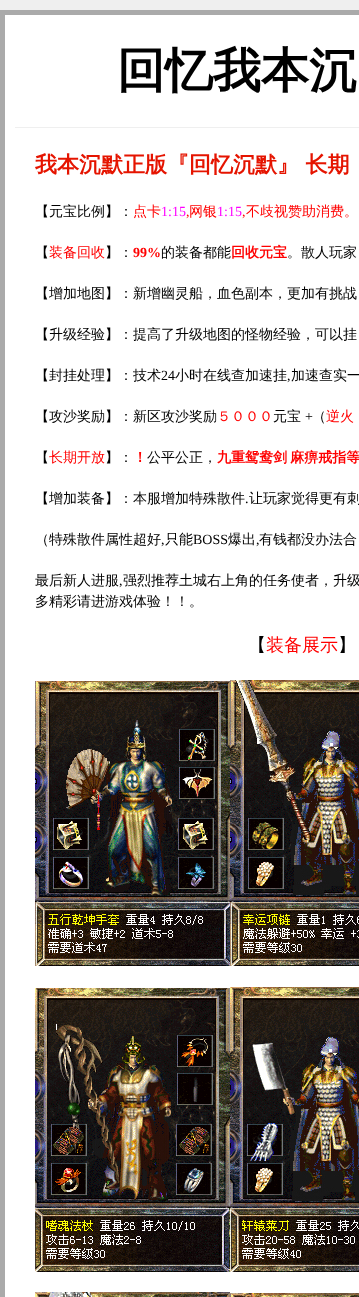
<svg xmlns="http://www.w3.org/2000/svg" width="359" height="1297">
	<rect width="100%" height="100%" fill="#EFEFEF" />
	<rect x="2.5" y="12.5" width="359" height="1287" fill="#FFFFFF" stroke="#AAAAAA" stroke-width="5" />
	<rect x="15" y="127" width="344" height="1" fill="#EFEFEF" />
	<text x="117" y="87" font-family="WenQuanYi Zen Hei" font-size="48" font-weight="700" fill="#000000">回忆我本沉</text>
	<text x="35" y="172" font-family="WenQuanYi Zen Hei" font-size="22" font-weight="700" fill="#E51400">我本沉默正版『回忆沉默』 长期</text>
	<text x="35" y="216" font-family="WenQuanYi Zen Hei" font-size="14" font-weight="500" fill="#000000">【元宝比例】：</text>
	<text x="133" y="216" font-family="WenQuanYi Zen Hei" font-size="14" font-weight="500" fill="#FF0000">点卡</text>
	<text x="161" y="216" font-family="Liberation Serif" font-size="14" fill="#FF00FF">1:15</text>
	<text x="186" y="216" font-family="Liberation Serif" font-size="14" fill="#FF0000">,</text>
	<text x="189" y="216" font-family="WenQuanYi Zen Hei" font-size="14" font-weight="500" fill="#FF0000">网银</text>
	<text x="217" y="216" font-family="Liberation Serif" font-size="14" fill="#FF00FF">1:15</text>
	<text x="242" y="216" font-family="Liberation Serif" font-size="14" fill="#FF0000">,</text>
	<text x="246" y="216" font-family="WenQuanYi Zen Hei" font-size="14" font-weight="500" fill="#FF0000">不歧视赞助消费。</text>
	<text x="35" y="257" font-family="WenQuanYi Zen Hei" font-size="14" font-weight="500" fill="#000000">【</text>
	<text x="49" y="257" font-family="WenQuanYi Zen Hei" font-size="14" font-weight="500" fill="#FF0000">装备回收</text>
	<text x="105" y="257" font-family="WenQuanYi Zen Hei" font-size="14" font-weight="500" fill="#000000">】：</text>
	<text x="133" y="257" font-family="Liberation Serif" font-size="14" font-weight="700" fill="#FF0000">99%</text>
	<text x="161" y="257" font-family="WenQuanYi Zen Hei" font-size="14" font-weight="500" fill="#000000">的装备都能</text>
	<text x="231" y="257" font-family="WenQuanYi Zen Hei" font-size="14" font-weight="700" fill="#FF0000">回收元宝</text>
	<g font-family="WenQuanYi Zen Hei" font-size="14" font-weight="500" fill="#000000">
		<text x="287" y="257">。散人玩家</text>
		<text x="35" y="298">【增加地图】：新增幽灵船，血色副本，更加有挑战</text>
		<text x="35" y="339">【升级经验】：提高了升级地图的怪物经验，可以挂</text>
		<text x="35" y="380">【封挂处理】：技术</text>
	</g>
	<text x="161" y="380" font-family="Liberation Serif" font-size="14" fill="#000000">24</text>
	<g font-family="WenQuanYi Zen Hei" font-size="14" font-weight="500" fill="#000000">
		<text x="175" y="380">小时在线查加速挂</text>
		<text x="291" y="380">加速查实一</text>
	</g>
	<text x="287" y="380" font-family="Liberation Serif" font-size="14" fill="#000000">,</text>
	<text x="35" y="421" font-family="WenQuanYi Zen Hei" font-size="14" font-weight="500" fill="#000000">【攻沙奖励】：新区攻沙奖励</text>
	<text x="217" y="421" font-family="WenQuanYi Zen Hei" font-size="14" font-weight="500" fill="#FF0000">５０００</text>
	<text x="273" y="421" font-family="WenQuanYi Zen Hei" font-size="14" font-weight="500" fill="#000000">元宝</text>
	<text x="305" y="421" font-family="Liberation Serif" font-size="14" fill="#000000">+</text>
	<text x="312" y="421" font-family="WenQuanYi Zen Hei" font-size="14" font-weight="500" fill="#000000">（</text>
	<text x="326" y="421" font-family="WenQuanYi Zen Hei" font-size="14" font-weight="500" fill="#FF0000">逆火</text>
	<text x="35" y="462" font-family="WenQuanYi Zen Hei" font-size="14" font-weight="500" fill="#000000">【</text>
	<text x="49" y="462" font-family="WenQuanYi Zen Hei" font-size="14" font-weight="500" fill="#FF0000">长期开放</text>
	<text x="105" y="462" font-family="WenQuanYi Zen Hei" font-size="14" font-weight="500" fill="#000000">】：</text>
	<text x="133" y="462" font-family="WenQuanYi Zen Hei" font-size="14" font-weight="700" fill="#FF0000">！</text>
	<text x="147" y="462" font-family="WenQuanYi Zen Hei" font-size="14" font-weight="500" fill="#000000">公平公正，</text>
	<text x="217" y="462" word-spacing="-1" font-family="WenQuanYi Zen Hei" font-size="14" font-weight="700" fill="#FF0000">九重鸳鸯剑 麻痹戒指等</text>
	<text x="35" y="503" font-family="WenQuanYi Zen Hei" font-size="14" font-weight="500" fill="#000000">【增加装备】：本服增加特殊散件</text>
	<text x="245" y="503" font-family="Liberation Serif" font-size="14" fill="#000000">.</text>
	<g font-family="WenQuanYi Zen Hei" font-size="14" font-weight="500" fill="#000000">
		<text x="249" y="503">让玩家觉得更有刺</text>
		<text x="35" y="544">（特殊散件属性超好</text>
	</g>
	<text x="161" y="544" font-family="Liberation Serif" font-size="14" fill="#000000">,</text>
	<text x="165" y="544" font-family="WenQuanYi Zen Hei" font-size="14" font-weight="500" fill="#000000">只能</text>
	<text x="193" y="544" font-family="Liberation Serif" font-size="14" fill="#000000">BOSS</text>
	<text x="228" y="544" font-family="WenQuanYi Zen Hei" font-size="14" font-weight="500" fill="#000000">爆出</text>
	<text x="256" y="544" font-family="Liberation Serif" font-size="14" fill="#000000">,</text>
	<g font-family="WenQuanYi Zen Hei" font-size="14" font-weight="500" fill="#000000">
		<text x="259" y="544">有钱都没办法合</text>
		<text x="35" y="585">最后新人进服</text>
	</g>
	<text x="119" y="585" font-family="Liberation Serif" font-size="14" fill="#000000">,</text>
	<g font-family="WenQuanYi Zen Hei" font-size="14" font-weight="500" fill="#000000">
		<text x="123" y="585" word-spacing="-1">强烈推荐土城右上角的任务使者，升级</text>
		<text x="35" y="606">多精彩请进游戏体验！！。</text>
	</g>
	<text x="248" y="651" font-family="WenQuanYi Zen Hei" font-size="18" font-weight="500" fill="#000000">【</text>
	<text x="266" y="651" font-family="WenQuanYi Zen Hei" font-size="18" font-weight="500" fill="#FF0000">装备展示</text>
	<text x="338" y="651" font-family="WenQuanYi Zen Hei" font-size="18" font-weight="500" fill="#000000">】</text>
	<image x="35" y="681" width="195" height="285" href="assets/img1.png" />
	<image x="230" y="680" width="129" height="286" href="assets/img2.png" />
	<image x="35" y="988" width="195" height="284" href="assets/img3.png" />
	<image x="230" y="987" width="129" height="285" href="assets/img4.png" />
	<image x="35" y="1292" width="195" height="5" href="assets/img5.png" />
	<image x="230" y="1293" width="129" height="4" href="assets/img6.png" />
</svg>
